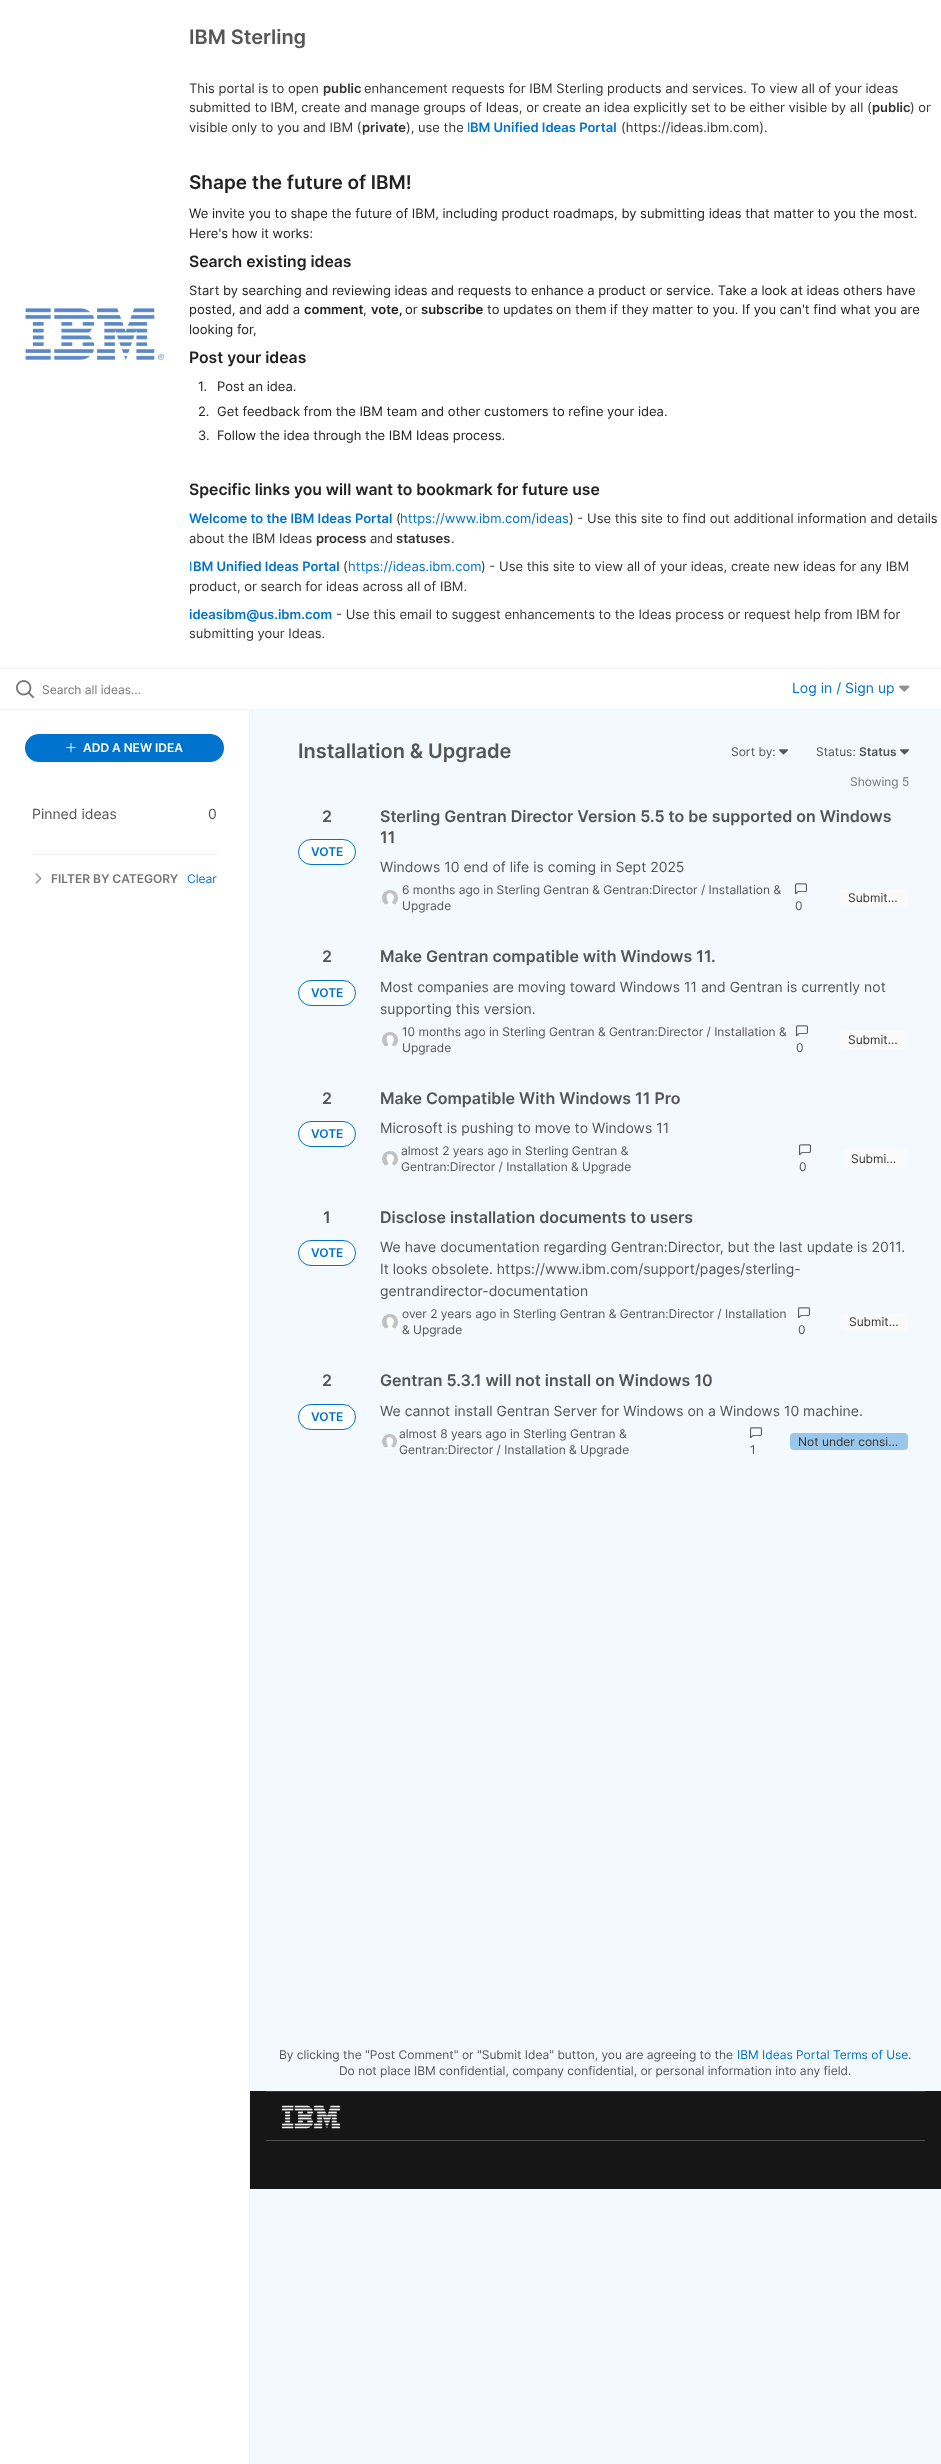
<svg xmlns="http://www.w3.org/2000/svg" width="941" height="2464">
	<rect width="100%" height="100%" fill="#F3F9FE" />
	<rect x="0" y="0" width="941" height="668" fill="#FFFFFF" />
	<rect x="0" y="668" width="941" height="1" fill="#F4F4F4" />
	<image x="25" y="308" width="140" height="52" href="assets/img1.png" />
	<text x="189" y="44" font-family="Inter" font-size="20" font-weight="600" fill="#555555">IBM Sterling</text>
	<text x="189" y="93" font-family="Inter" font-size="13" fill="#333333">This portal is to open</text>
	<text x="323" y="93" font-family="Inter" font-size="13" font-weight="600" fill="#333333">public</text>
	<g font-family="Inter" font-size="13" fill="#333333">
		<text x="364" y="93">enhancement requests for IBM Sterling products and services. To view all of your ideas</text>
		<text x="189" y="112">submitted to IBM, create and manage groups of Ideas, or create an idea explicitly set to be either visible by all (</text>
	</g>
	<text x="872" y="112" font-family="Inter" font-size="13" font-weight="600" fill="#333333">public</text>
	<g font-family="Inter" font-size="13" fill="#333333">
		<text x="910" y="112">) or</text>
		<text x="189" y="132">visible only to you and IBM (</text>
	</g>
	<text x="362" y="132" font-family="Inter" font-size="13" font-weight="600" fill="#333333">private</text>
	<text x="406" y="132" font-family="Inter" font-size="13" fill="#333333">), use the</text>
	<text x="467" y="132" font-family="Inter" font-size="13" fill="#0073CF">I</text>
	<text x="470" y="132" font-family="Inter" font-size="13" font-weight="600" fill="#0073CF">BM Unified Ideas Portal</text>
	<text x="621" y="132" font-family="Inter" font-size="13" fill="#333333">(https://ideas.ibm.com).</text>
	<text x="189" y="189" font-family="Inter" font-size="19" font-weight="600" fill="#222222">Shape the future of IBM!</text>
	<g font-family="Inter" font-size="13" fill="#222222">
		<text x="189" y="218">We invite you to shape the future of IBM, including product roadmaps, by submitting ideas that matter to you the most.</text>
		<text x="189" y="238">Here's how it works:</text>
	</g>
	<text x="189" y="267" font-family="Inter" font-size="15.75" font-weight="600" fill="#222222">Search existing ideas</text>
	<g font-family="Inter" font-size="13" fill="#222222">
		<text x="189" y="295">Start by searching and reviewing ideas and requests to enhance a product or service. Take a look at ideas others have</text>
		<text x="189" y="314">posted, and add a</text>
	</g>
	<text x="304" y="314" font-family="Inter" font-size="13" font-weight="600" fill="#222222">comment</text>
	<text x="363" y="314" font-family="Inter" font-size="13" fill="#222222">,</text>
	<text x="371" y="314" font-family="Inter" font-size="13" font-weight="600" fill="#222222">vote,</text>
	<text x="405" y="314" font-family="Inter" font-size="13" fill="#222222">or</text>
	<text x="421" y="314" font-family="Inter" font-size="13" font-weight="600" fill="#222222">subscribe</text>
	<g font-family="Inter" font-size="13" fill="#222222">
		<text x="487" y="314">to updates</text>
		<text x="556" y="314">on them if they matter to you. If you can't find what you are</text>
		<text x="189" y="334">looking for,</text>
	</g>
	<text x="189" y="363" font-family="Inter" font-size="15.75" font-weight="600" fill="#222222">Post your ideas</text>
	<g font-family="Inter" font-size="13" fill="#222222">
		<text x="198" y="391">1.</text>
		<text x="217" y="391">Post an idea.</text>
		<text x="198" y="416">2.</text>
		<text x="217" y="416">Get feedback from the IBM team and other customers to refine your idea.</text>
		<text x="198" y="440">3.</text>
		<text x="217" y="440">Follow the idea through the IBM Ideas process.</text>
	</g>
	<text x="189" y="495" font-family="Inter" font-size="15.75" font-weight="600" fill="#222222">Specific links you will want to bookmark for future use</text>
	<text x="189" y="523" font-family="Inter" font-size="13" font-weight="600" fill="#0073CF">Welcome to the IBM Ideas Portal</text>
	<text x="396" y="523" font-family="Inter" font-size="13" fill="#333333">(</text>
	<text x="400" y="523" font-family="Inter" font-size="13" fill="#0073CF">https://www.ibm.com/ideas</text>
	<g font-family="Inter" font-size="13" fill="#333333">
		<text x="569" y="523">) - Use this site to find out additional information and details</text>
		<text x="189" y="543">about the IBM Ideas</text>
	</g>
	<text x="316" y="543" font-family="Inter" font-size="13" font-weight="600" fill="#333333">process</text>
	<text x="370" y="543" font-family="Inter" font-size="13" fill="#333333">and</text>
	<text x="396" y="543" font-family="Inter" font-size="13" font-weight="600" fill="#333333">statuses</text>
	<text x="451" y="543" font-family="Inter" font-size="13" fill="#333333">.</text>
	<text x="189" y="571" font-family="Inter" font-size="13" fill="#0073CF">I</text>
	<text x="193" y="571" font-family="Inter" font-size="13" font-weight="600" fill="#0073CF">BM Unified Ideas Portal</text>
	<text x="343" y="571" font-family="Inter" font-size="13" fill="#333333">(</text>
	<text x="348" y="571" font-family="Inter" font-size="13" fill="#0073CF">https://ideas.ibm.com</text>
	<g font-family="Inter" font-size="13" fill="#333333">
		<text x="481" y="571">) - Use this site to view all of your ideas, create new ideas for any IBM</text>
		<text x="189" y="591">product, or search for ideas across all of IBM.</text>
	</g>
	<text x="189" y="619" font-family="Inter" font-size="13" font-weight="600" fill="#0073CF">ideasibm@us.ibm.com</text>
	<g font-family="Inter" font-size="13" fill="#333333">
		<text x="336" y="619">- Use this email to suggest enhancements to the Ideas process or request help from IBM for</text>
		<text x="189" y="638">submitting your Ideas.</text>
	</g>
	<rect x="0" y="669" width="941" height="40" fill="#FFFFFF" />
	<rect x="0" y="709" width="941" height="1" fill="#F4F4F4" />
	<image x="16" y="680" width="18" height="19" href="assets/img2.png" />
	<text x="42" y="694" font-family="Inter" font-size="12" fill="#767676">Search all ideas…</text>
	<text x="792" y="693" font-family="Inter" font-size="14" fill="#0073CF">Log in / Sign up</text>
	<image x="899" y="685" width="11" height="7" href="assets/img3.png" />
	<rect x="0" y="710" width="249" height="1754" fill="#FFFFFF" />
	<rect x="249" y="710" width="1" height="1754" fill="#F4F4F4" />
	<rect x="25" y="734" width="199" height="28" rx="14" fill="#0073CF" />
	<image x="66" y="743" width="10" height="10" href="assets/img4.png" />
	<text x="83" y="752" font-family="Inter" font-size="12" font-weight="600" fill="#FFFFFF">ADD A NEW IDEA</text>
	<g font-family="Inter" font-size="14" fill="#555555">
		<text x="32" y="819">Pinned ideas</text>
		<text x="208" y="819">0</text>
	</g>
	<rect x="32" y="854" width="185" height="1" fill="#F1F1F1" />
	<image x="35" y="873" width="7" height="11" href="assets/img5.png" />
	<text x="51" y="883" font-family="Inter" font-size="12" font-weight="600" fill="#767676">FILTER BY CATEGORY</text>
	<text x="187" y="883" font-family="Inter" font-size="12" fill="#0073CF">Clear</text>
	<text x="298" y="758" font-family="Inter" font-size="20" font-weight="600" fill="#555555">Installation &amp; Upgrade</text>
	<text x="731" y="756" font-family="Inter" font-size="12" fill="#555555">Sort by:</text>
	<image x="779" y="749" width="9" height="6" href="assets/img6.png" />
	<text x="816" y="756" font-family="Inter" font-size="12" fill="#555555">Status:</text>
	<text x="859" y="756" font-family="Inter" font-size="12" font-weight="600" fill="#555555">Status</text>
	<image x="900" y="749" width="9" height="6" href="assets/img6.png" />
	<text x="850" y="786" font-family="Inter" font-size="12" fill="#767676">Showing 5</text>
	<text x="322" y="822" font-family="Inter" font-size="16" font-weight="600" fill="#555555">2</text>
	<rect x="298.5" y="839.5" width="57" height="25" rx="12.5" fill="#FFFFFF" stroke="#0073CF" />
	<text x="311" y="856" font-family="Inter" font-size="12" font-weight="600" fill="#0073CF">VOTE</text>
	<g font-family="Inter" font-size="16" font-weight="600" fill="#555555">
		<text x="380" y="822">Sterling Gentran Director Version 5.5 to be supported on Windows</text>
		<text x="380" y="843">11</text>
	</g>
	<text x="380" y="872" font-family="Inter" font-size="14" fill="#555555">Windows 10 end of life is coming in Sept 2025</text>
	<image x="382" y="890" width="16" height="16" href="assets/img7.png" />
	<g font-family="Inter" font-size="12" fill="#555555">
		<text x="402" y="894">6 months ago in Sterling Gentran &amp; Gentran:Director / Installation &amp;</text>
		<text x="402" y="910">Upgrade</text>
	</g>
	<rect x="840" y="889" width="68" height="18" rx="4" fill="#FAFAFA" />
	<text x="848" y="902" font-family="Inter" font-size="12" fill="#333333">Submit…</text>
	<image x="795" y="883" width="12" height="12" href="assets/img8.png" />
	<text x="795" y="910" font-family="Inter" font-size="12" fill="#555555">0</text>
	<text x="322" y="962" font-family="Inter" font-size="16" font-weight="600" fill="#555555">2</text>
	<rect x="298.5" y="980.5" width="57" height="25" rx="12.5" fill="#FFFFFF" stroke="#0073CF" />
	<text x="311" y="997" font-family="Inter" font-size="12" font-weight="600" fill="#0073CF">VOTE</text>
	<text x="380" y="962" font-family="Inter" font-size="16" font-weight="600" fill="#555555">Make Gentran compatible with Windows 11.</text>
	<g font-family="Inter" font-size="14" fill="#555555">
		<text x="380" y="992">Most companies are moving toward Windows 11 and Gentran is currently not</text>
		<text x="380" y="1014">supporting this version.</text>
	</g>
	<image x="382" y="1032" width="16" height="16" href="assets/img7.png" />
	<g font-family="Inter" font-size="12" fill="#555555">
		<text x="402" y="1036">10 months ago in Sterling Gentran &amp; Gentran:Director / Installation &amp;</text>
		<text x="402" y="1052">Upgrade</text>
	</g>
	<rect x="840" y="1031" width="68" height="18" rx="4" fill="#FAFAFA" />
	<text x="848" y="1044" font-family="Inter" font-size="12" fill="#333333">Submit…</text>
	<image x="796" y="1025" width="12" height="12" href="assets/img8.png" />
	<text x="796" y="1052" font-family="Inter" font-size="12" fill="#555555">0</text>
	<text x="322" y="1104" font-family="Inter" font-size="16" font-weight="600" fill="#555555">2</text>
	<rect x="298.5" y="1121.5" width="57" height="25" rx="12.5" fill="#FFFFFF" stroke="#0073CF" />
	<text x="311" y="1138" font-family="Inter" font-size="12" font-weight="600" fill="#0073CF">VOTE</text>
	<text x="380" y="1104" font-family="Inter" font-size="16" font-weight="600" fill="#555555">Make Compatible With Windows 11 Pro</text>
	<text x="380" y="1133" font-family="Inter" font-size="14" fill="#555555">Microsoft is pushing to move to Windows 11</text>
	<image x="382" y="1151" width="16" height="16" href="assets/img7.png" />
	<g font-family="Inter" font-size="12" fill="#555555">
		<text x="401" y="1155">almost 2 years ago in Sterling Gentran &amp;</text>
		<text x="401" y="1171">Gentran:Director / Installation &amp; Upgrade</text>
	</g>
	<rect x="843" y="1150" width="65" height="18" rx="4" fill="#FAFAFA" />
	<text x="851" y="1163" font-family="Inter" font-size="12" fill="#333333">Submi…</text>
	<image x="799" y="1144" width="12" height="12" href="assets/img8.png" />
	<text x="799" y="1171" font-family="Inter" font-size="12" fill="#555555">0</text>
	<text x="323" y="1223" font-family="Inter" font-size="16" font-weight="600" fill="#555555">1</text>
	<rect x="298.5" y="1240.5" width="57" height="25" rx="12.5" fill="#FFFFFF" stroke="#0073CF" />
	<text x="311" y="1257" font-family="Inter" font-size="12" font-weight="600" fill="#0073CF">VOTE</text>
	<text x="380" y="1223" font-family="Inter" font-size="16" font-weight="600" fill="#555555">Disclose installation documents to users</text>
	<g font-family="Inter" font-size="14" fill="#555555">
		<text x="380" y="1252">We have documentation regarding Gentran:Director, but the last update is 2011.</text>
		<text x="380" y="1274">It looks obsolete. https://www.ibm.com/support/pages/sterling-</text>
		<text x="380" y="1296">gentrandirector-documentation</text>
	</g>
	<image x="382" y="1314" width="16" height="16" href="assets/img7.png" />
	<g font-family="Inter" font-size="12" fill="#555555">
		<text x="402" y="1318">over 2 years ago in Sterling Gentran &amp; Gentran:Director / Installation</text>
		<text x="402" y="1334">&amp; Upgrade</text>
	</g>
	<rect x="841" y="1313" width="67" height="18" rx="4" fill="#FAFAFA" />
	<text x="849" y="1326" font-family="Inter" font-size="12" fill="#333333">Submit…</text>
	<image x="798" y="1307" width="12" height="12" href="assets/img8.png" />
	<text x="798" y="1334" font-family="Inter" font-size="12" fill="#555555">0</text>
	<text x="322" y="1386" font-family="Inter" font-size="16" font-weight="600" fill="#555555">2</text>
	<rect x="298.5" y="1404.5" width="57" height="25" rx="12.5" fill="#FFFFFF" stroke="#0073CF" />
	<text x="311" y="1421" font-family="Inter" font-size="12" font-weight="600" fill="#0073CF">VOTE</text>
	<text x="380" y="1386" font-family="Inter" font-size="16" font-weight="600" fill="#555555">Gentran 5.3.1 will not install on Windows 10</text>
	<text x="380" y="1416" font-family="Inter" font-size="14" fill="#555555">We cannot install Gentran Server for Windows on a Windows 10 machine.</text>
	<image x="382" y="1434" width="15" height="15" href="assets/img9.png" />
	<g font-family="Inter" font-size="12" fill="#555555">
		<text x="399" y="1438">almost 8 years ago in Sterling Gentran &amp;</text>
		<text x="399" y="1454">Gentran:Director / Installation &amp; Upgrade</text>
	</g>
	<rect x="790" y="1433" width="118" height="17" rx="4" fill="#99C7EC" />
	<text x="798" y="1446" font-family="Inter" font-size="12" fill="#333333">Not under consi…</text>
	<image x="750" y="1427" width="12" height="12" href="assets/img8.png" />
	<g font-family="Inter" font-size="12" fill="#555555">
		<text x="750" y="1454">1</text>
		<text x="279" y="2059">By clicking the "Post Comment" or "Submit Idea" button, you are agreeing to the</text>
	</g>
	<text x="737" y="2059" font-family="Inter" font-size="12" fill="#0073CF">IBM Ideas Portal Terms of Use</text>
	<g font-family="Inter" font-size="12" fill="#555555">
		<text x="908" y="2059">.</text>
		<text x="339" y="2075">Do not place IBM confidential, company confidential, or personal information into any field.</text>
	</g>
	<rect x="250" y="2091" width="691" height="98" fill="#161616" />
	<rect x="266" y="2091" width="659" height="1" fill="#393939" />
	<image x="282" y="2105" width="58" height="24" href="assets/img10.png" />
	<rect x="266" y="2140" width="659" height="1" fill="#525252" />
</svg>
